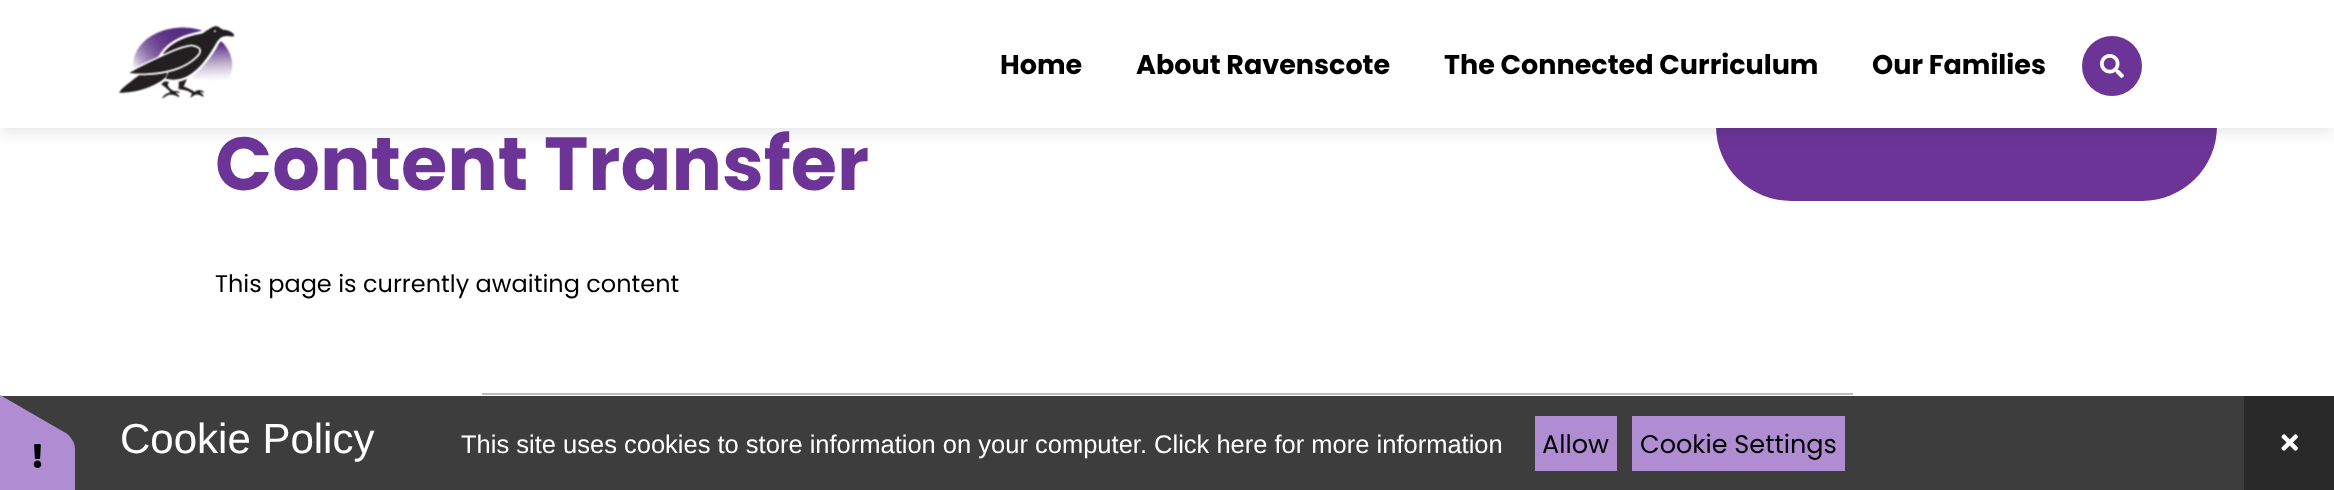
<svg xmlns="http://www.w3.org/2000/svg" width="2334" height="490">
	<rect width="100%" height="100%" fill="#FFFFFF" />
	<rect x="1" y="396" width="2243" height="94" fill="#3D3D3D" />
	<rect x="1716" y="-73" width="501" height="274" rx="75" fill="#6C3497" />
	<rect x="0" y="5" width="2334" height="127" fill="#000000" fill-opacity="0.1" filter="blur(7.5px)" />
	<rect x="0" y="0" width="2334" height="128" fill="#FFFFFF" />
	<image x="118" y="25" width="118" height="74" href="assets/img1.png" />
	<g font-family="Poppins" font-size="27" font-weight="700" fill="#000000">
		<text x="1000" y="74">Home</text>
		<text x="1136" y="74">About Ravenscote</text>
		<text x="1444" y="74">The Connected Curriculum</text>
		<text x="1872" y="74">Our Families</text>
	</g>
	<circle cx="2112" cy="66" r="30" fill="#6C3497" />
	<image x="2100" y="54" width="24" height="24" href="assets/img2.png" />
	<text x="215" y="190" font-family="Poppins" font-size="75" font-weight="700" fill="#6C3497">Content Transfer</text>
	<text x="215" y="292" font-family="Poppins" font-size="24" fill="#000000">This page is currently awaiting content</text>
	<rect x="482" y="393" width="1371" height="2" fill="#BCBCBC" />
	<path d="M75 450V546C75 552 72 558 69 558H-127C-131 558-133 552-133 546V450C-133 443-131 438-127 438H69C72 438 75 443 75 450Z" fill="#B08CD3" />
	<path d="M-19 384L64 432C70 435 73 440 72 443L-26 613C-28 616-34 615-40 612L-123 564C-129 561-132 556-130 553L-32 383C-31 380-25 381-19 384Z" fill="#B08CD3" />
	<image x="33" y="444" width="9" height="24" href="assets/img3.png" />
	<text x="120" y="453" font-family="Liberation Sans" font-size="42" fill="#FFFFFF">Cookie Policy</text>
	<text x="461" y="453" font-family="Liberation Sans" font-size="25.5" fill="#FFFFFF">This site uses cookies to store information on your computer. Click here for more information</text>
	<rect x="1535" y="416" width="82" height="55" fill="#B08CD3" />
	<text x="1542" y="453" font-family="Poppins" font-size="25.5" fill="#000000">Allow</text>
	<rect x="1632" y="416" width="213" height="55" fill="#B08CD3" />
	<text x="1640" y="453" font-family="Poppins" font-size="25.5" fill="#000000">Cookie Settings</text>
	<rect x="2244" y="396" width="90" height="94" fill="#292929" />
	<image x="2281" y="434" width="17" height="17" href="assets/img4.png" />
</svg>
